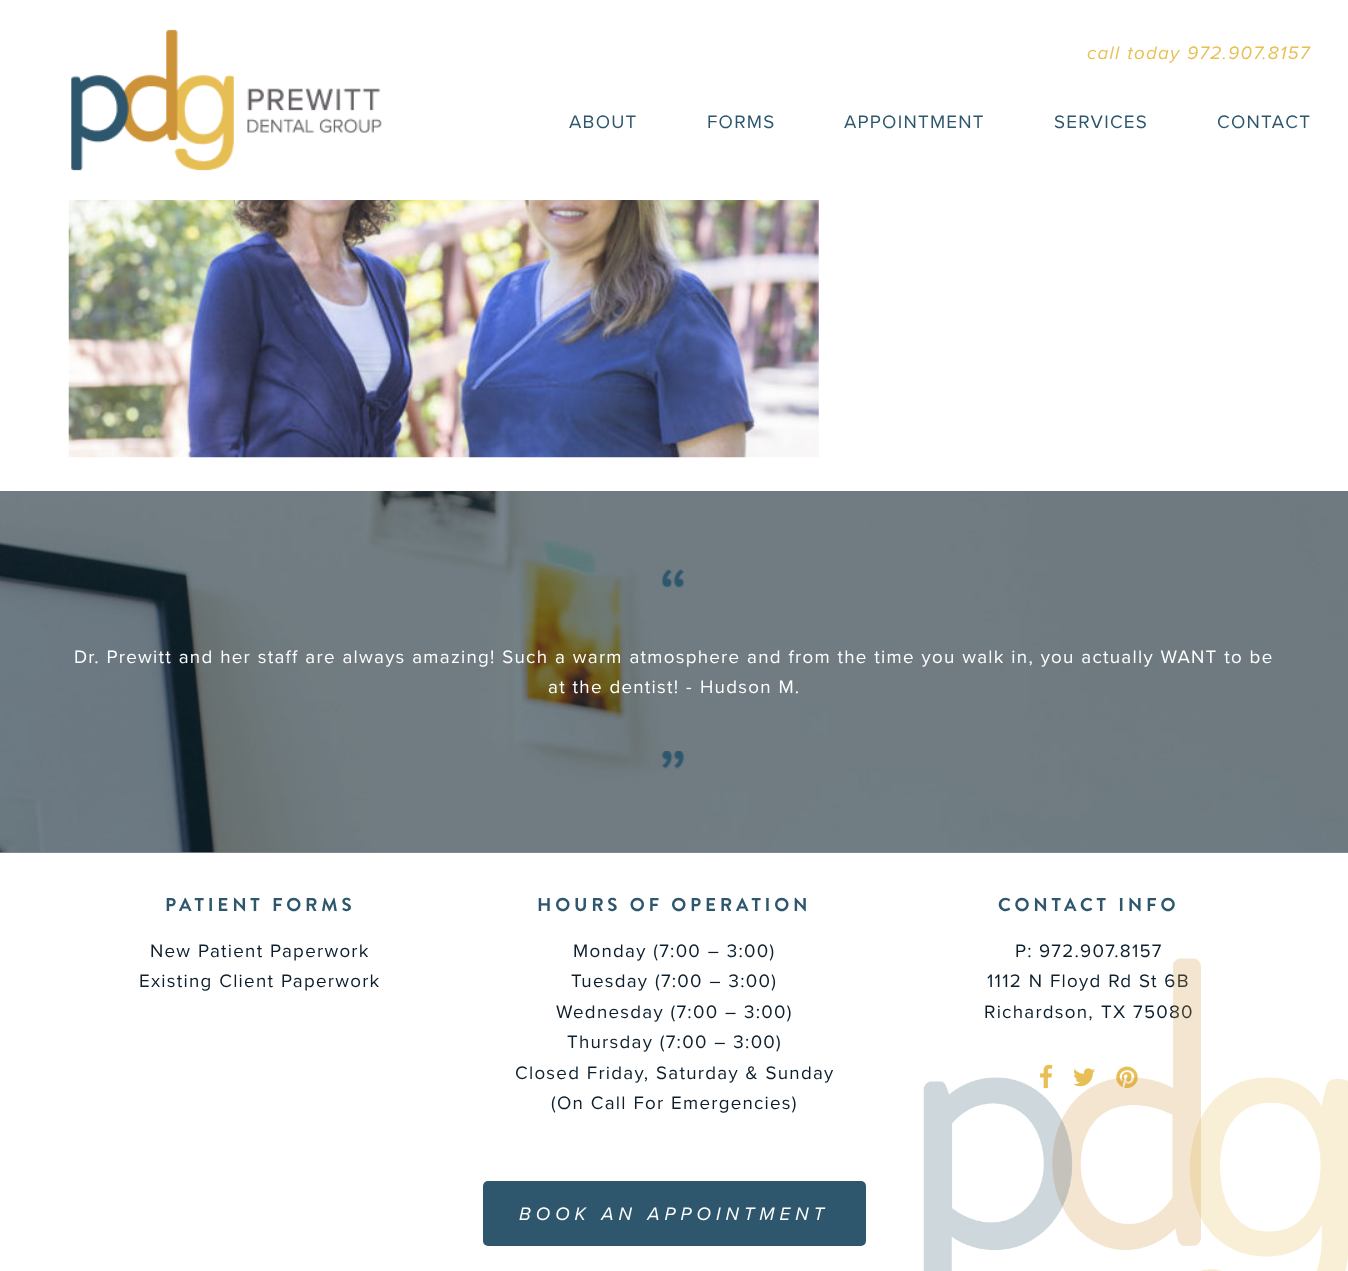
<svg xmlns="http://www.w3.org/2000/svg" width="1348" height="1271">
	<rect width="100%" height="100%" fill="#FFFFFF" />
	<rect x="0" y="852" width="1348" height="1" fill="#868F96" />
	<image x="71" y="29" width="311" height="142" href="assets/img1.png" />
	<g font-family="'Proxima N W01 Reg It'" font-size="18.75" letter-spacing="1.25" fill="#E8BF55">
		<text x="1087" y="59" word-spacing="0.6">call today</text>
		<text x="1187" y="59">972.907.8157</text>
	</g>
	<g font-family="'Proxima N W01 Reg'" font-size="18.75" letter-spacing="1.25" fill="#2E576D">
		<text x="569" y="128">ABOUT</text>
		<text x="707" y="128">FORMS</text>
		<text x="844" y="128">APPOINTMENT</text>
		<text x="1054" y="128">SERVICES</text>
		<text x="1217" y="128">CONTACT</text>
	</g>
	<image x="68" y="200" width="751" height="258" href="assets/img2.png" />
	<image x="0" y="491" width="1348" height="362" href="assets/img3.png" />
	<image x="662" y="569" width="22" height="19" href="assets/img4.png" />
	<g font-family="'Proxima N W01 Reg'" font-size="18.75" letter-spacing="1.25" fill="#FFFFFF">
		<text x="74" y="663" word-spacing="0.6">Dr. Prewitt and her staff are always amazing! Such a warm atmosphere and from the time you walk in, you actually WANT to be</text>
		<text x="548" y="693" word-spacing="0.6">at the dentist! -</text>
		<text x="700" y="693" word-spacing="0.6">Hudson M.</text>
	</g>
	<image x="662" y="751" width="22" height="18" href="assets/img5.png" />
	<text x="165" y="911" word-spacing="0.6" font-family="Brandon Grotesque" font-size="18.75" font-weight="700" letter-spacing="3.75" fill="#2E576D">PATIENT FORMS</text>
	<g font-family="'Proxima N W01 Reg'" font-size="18.75" letter-spacing="1.25" fill="#0D1F2D">
		<text x="150" y="957" word-spacing="0.6">New Patient Paperwork</text>
		<text x="139" y="987" word-spacing="0.6">Existing Client Paperwork</text>
	</g>
	<text x="537" y="911" word-spacing="0.6" font-family="Brandon Grotesque" font-size="18.75" font-weight="700" letter-spacing="3.75" fill="#2E576D">HOURS OF OPERATION</text>
	<g font-family="'Proxima N W01 Reg'" font-size="18.75" letter-spacing="1.25" fill="#0D1F2D">
		<text x="573" y="957" word-spacing="0.6">Monday (7:00 – 3:00)</text>
		<text x="571" y="987" word-spacing="0.6">Tuesday (7:00 – 3:00)</text>
		<text x="556" y="1018" word-spacing="0.6">Wednesday (7:00 – 3:00)</text>
		<text x="567" y="1048" word-spacing="0.6">Thursday (7:00 – 3:00)</text>
		<text x="515" y="1079" word-spacing="0.6">Closed Friday, Saturday &amp; Sunday</text>
		<text x="551" y="1109" word-spacing="0.6">(On Call For Emergencies)</text>
	</g>
	<rect x="483" y="1181" width="383" height="65" rx="5" fill="#2E576D" />
	<text x="519" y="1220" word-spacing="0.6" font-family="'Proxima N W01 Reg It'" font-size="18.75" letter-spacing="5" fill="#FFFFFF">BOOK AN APPOINTMENT</text>
	<text x="998" y="911" word-spacing="0.6" font-family="Brandon Grotesque" font-size="18.75" font-weight="700" letter-spacing="3.75" fill="#2E576D">CONTACT INFO</text>
	<g font-family="'Proxima N W01 Reg'" font-size="18.75" letter-spacing="1.25" fill="#0D1F2D">
		<text x="1015" y="957">P:</text>
		<text x="1039" y="957">972.907.8157</text>
		<text x="987" y="987" word-spacing="0.6">1112 N Floyd Rd St 6B</text>
		<text x="984" y="1018">Richardson,</text>
		<text x="1101" y="1018">TX</text>
		<text x="1133" y="1018">75080</text>
	</g>
	<image x="1040" y="1064" width="13" height="25" href="assets/img6.png" />
	<image x="1073" y="1068" width="22" height="19" href="assets/img7.png" />
	<image x="1116" y="1066" width="22" height="22" href="assets/img8.png" />
	<image x="923" y="958" width="425" height="313" href="assets/img9.png" />
</svg>
